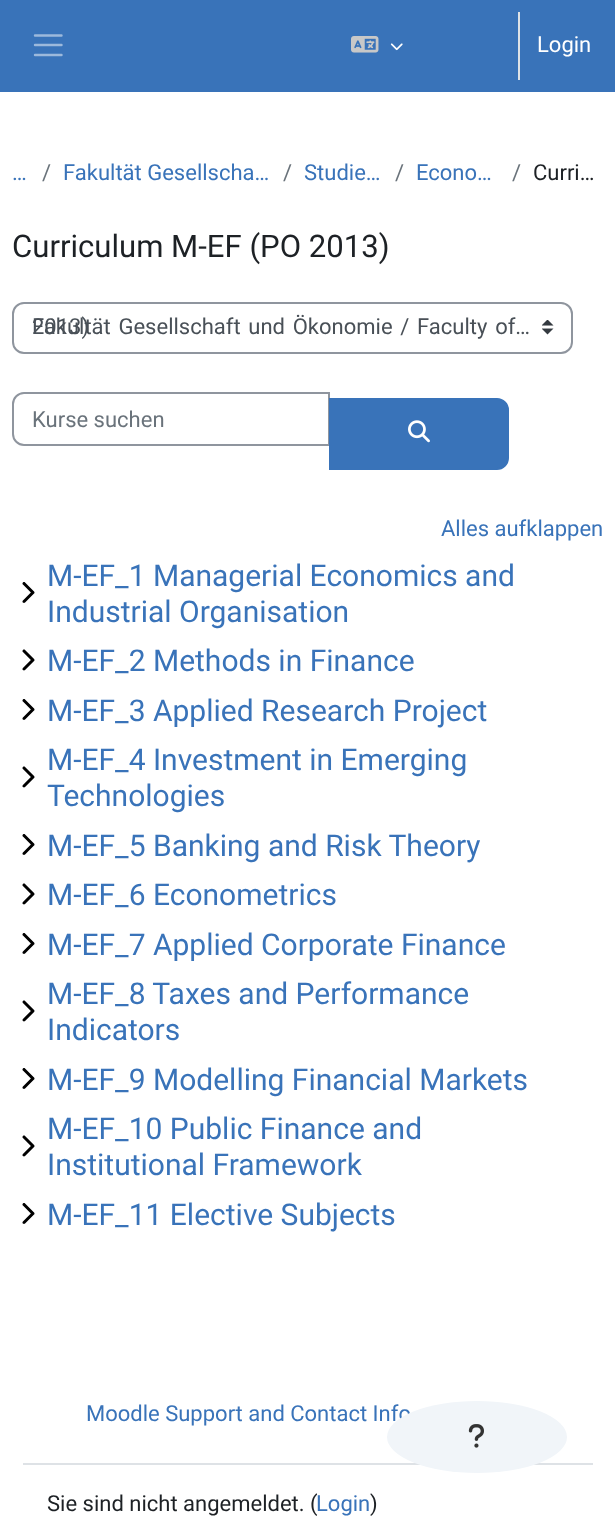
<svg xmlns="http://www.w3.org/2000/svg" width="615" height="1520">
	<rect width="100%" height="100%" fill="#FFFFFF" />
	<rect x="0" y="0" width="615" height="92" fill="#3973B9" />
	<path d="M35 35.5H61.5M35 45H61.5M35 55H61.5" fill="none" stroke="#9CB9DC" stroke-width="2.4" stroke-linecap="round" />
	<image x="351" y="36" width="28" height="17" href="assets/img1.png" />
	<image x="390" y="43" width="13" height="8" href="assets/img2.png" />
	<rect x="518" y="12" width="2" height="68" fill="#DEE2E6" />
	<text x="537" y="52" font-family="Roboto" font-size="22" fill="#FFFFFF">Login</text>
	<text x="12" y="180" font-family="Roboto" font-size="22" fill="#3973B9">…</text>
	<text x="42" y="180" font-family="Roboto" font-size="22" fill="#6A737B">/</text>
	<text x="63" y="180" font-family="Roboto" font-size="22" fill="#3973B9">Fakultät Gesellscha…</text>
	<text x="283" y="180" font-family="Roboto" font-size="22" fill="#6A737B">/</text>
	<text x="304" y="180" font-family="Roboto" font-size="22" fill="#3973B9">Studie…</text>
	<text x="395" y="180" font-family="Roboto" font-size="22" fill="#6A737B">/</text>
	<text x="416" y="180" font-family="Roboto" font-size="22" fill="#3973B9">Econo…</text>
	<text x="512" y="180" font-family="Roboto" font-size="22" fill="#6A737B">/</text>
	<text x="533" y="180" font-family="Roboto" font-size="22" fill="#1D2125">Curri…</text>
	<text x="12" y="257" font-family="Roboto" font-size="31.1" fill="#1D2125">Curriculum M-EF (PO 2013)</text>
	<image x="542" y="320" width="12" height="15" href="assets/img3.png" />
	<rect x="13" y="303" width="559" height="50" rx="11" fill="none" stroke="#8F959E" stroke-width="2" />
	<g font-family="Roboto" font-size="22" fill="#495057">
		<text x="32" y="334" word-spacing="2.25">Fakultät Gesellschaft und Ökonomie / Faculty of…</text>
		<text x="32" y="334">2013)</text>
	</g>
	<path d="M24 393H329V445H24C18 445 13 440 13 434V404C13 398 18 393 24 393Z" fill="none" stroke="#8F959E" stroke-width="2" />
	<text x="32" y="427" font-family="Roboto" font-size="22" fill="#6A737B">Kurse suchen</text>
	<path d="M330 399H497C503 399 508 404 508 410V458C508 464 503 469 497 469H330Z" fill="#3973B9" stroke="#3973B9" stroke-width="2" />
	<image x="408" y="420" width="22" height="23" href="assets/img4.png" />
	<text x="441" y="536" font-family="Roboto" font-size="22" fill="#3973B9">Alles aufklappen</text>
	<image x="22" y="582" width="13" height="21" href="assets/img5.png" />
	<g font-family="Roboto" font-size="30" fill="#3973B9">
		<text x="47" y="586">M-EF_1 Managerial Economics and</text>
		<text x="47" y="622">Industrial Organisation</text>
	</g>
	<image x="22" y="649" width="13" height="22" href="assets/img6.png" />
	<text x="47" y="671" font-family="Roboto" font-size="30" fill="#3973B9">M-EF_2 Methods in Finance</text>
	<image x="22" y="699" width="13" height="21" href="assets/img5.png" />
	<text x="47" y="721" font-family="Roboto" font-size="30" fill="#3973B9">M-EF_3 Applied Research Project</text>
	<image x="22" y="766" width="13" height="22" href="assets/img6.png" />
	<g font-family="Roboto" font-size="30" fill="#3973B9">
		<text x="47" y="770">M-EF_4 Investment in Emerging</text>
		<text x="47" y="806">Technologies</text>
	</g>
	<image x="22" y="834" width="13" height="21" href="assets/img5.png" />
	<text x="47" y="856" font-family="Roboto" font-size="30" fill="#3973B9">M-EF_5 Banking and Risk Theory</text>
	<image x="22" y="883" width="13" height="22" href="assets/img6.png" />
	<text x="47" y="905" font-family="Roboto" font-size="30" fill="#3973B9">M-EF_6 Econometrics</text>
	<image x="22" y="933" width="13" height="21" href="assets/img5.png" />
	<text x="47" y="955" font-family="Roboto" font-size="30" fill="#3973B9">M-EF_7 Applied Corporate Finance</text>
	<image x="22" y="1000" width="13" height="22" href="assets/img7.png" />
	<g font-family="Roboto" font-size="30" fill="#3973B9">
		<text x="47" y="1004">M-EF_8 Taxes and Performance</text>
		<text x="47" y="1040">Indicators</text>
	</g>
	<image x="22" y="1068" width="13" height="21" href="assets/img5.png" />
	<text x="47" y="1090" font-family="Roboto" font-size="30" fill="#3973B9">M-EF_9 Modelling Financial Markets</text>
	<image x="22" y="1135" width="13" height="22" href="assets/img6.png" />
	<g font-family="Roboto" font-size="30" fill="#3973B9">
		<text x="47" y="1139">M-EF_10 Public Finance and</text>
		<text x="47" y="1175">Institutional Framework</text>
	</g>
	<image x="22" y="1203" width="13" height="21" href="assets/img5.png" />
	<text x="47" y="1225" font-family="Roboto" font-size="30" fill="#3973B9">M-EF_11 Elective Subjects</text>
	<rect x="23" y="1463" width="570" height="2" fill="#DEE2E6" />
	<text x="86" y="1421" font-family="Roboto" font-size="22" fill="#3973B9">Moodle Support and Contact Info</text>
	<text x="47" y="1511" font-family="Roboto" font-size="22" fill="#1D2125">Sie sind nicht angemeldet. (</text>
	<text x="316" y="1511" font-family="Roboto" font-size="22" fill="#3973B9">Login</text>
	<text x="370" y="1511" font-family="Roboto" font-size="22" fill="#1D2125">)</text>
	<ellipse cx="477" cy="1437" rx="90" ry="36" fill="#F1F5F9" />
	<image x="468" y="1424" width="16" height="24" href="assets/img8.png" />
</svg>
